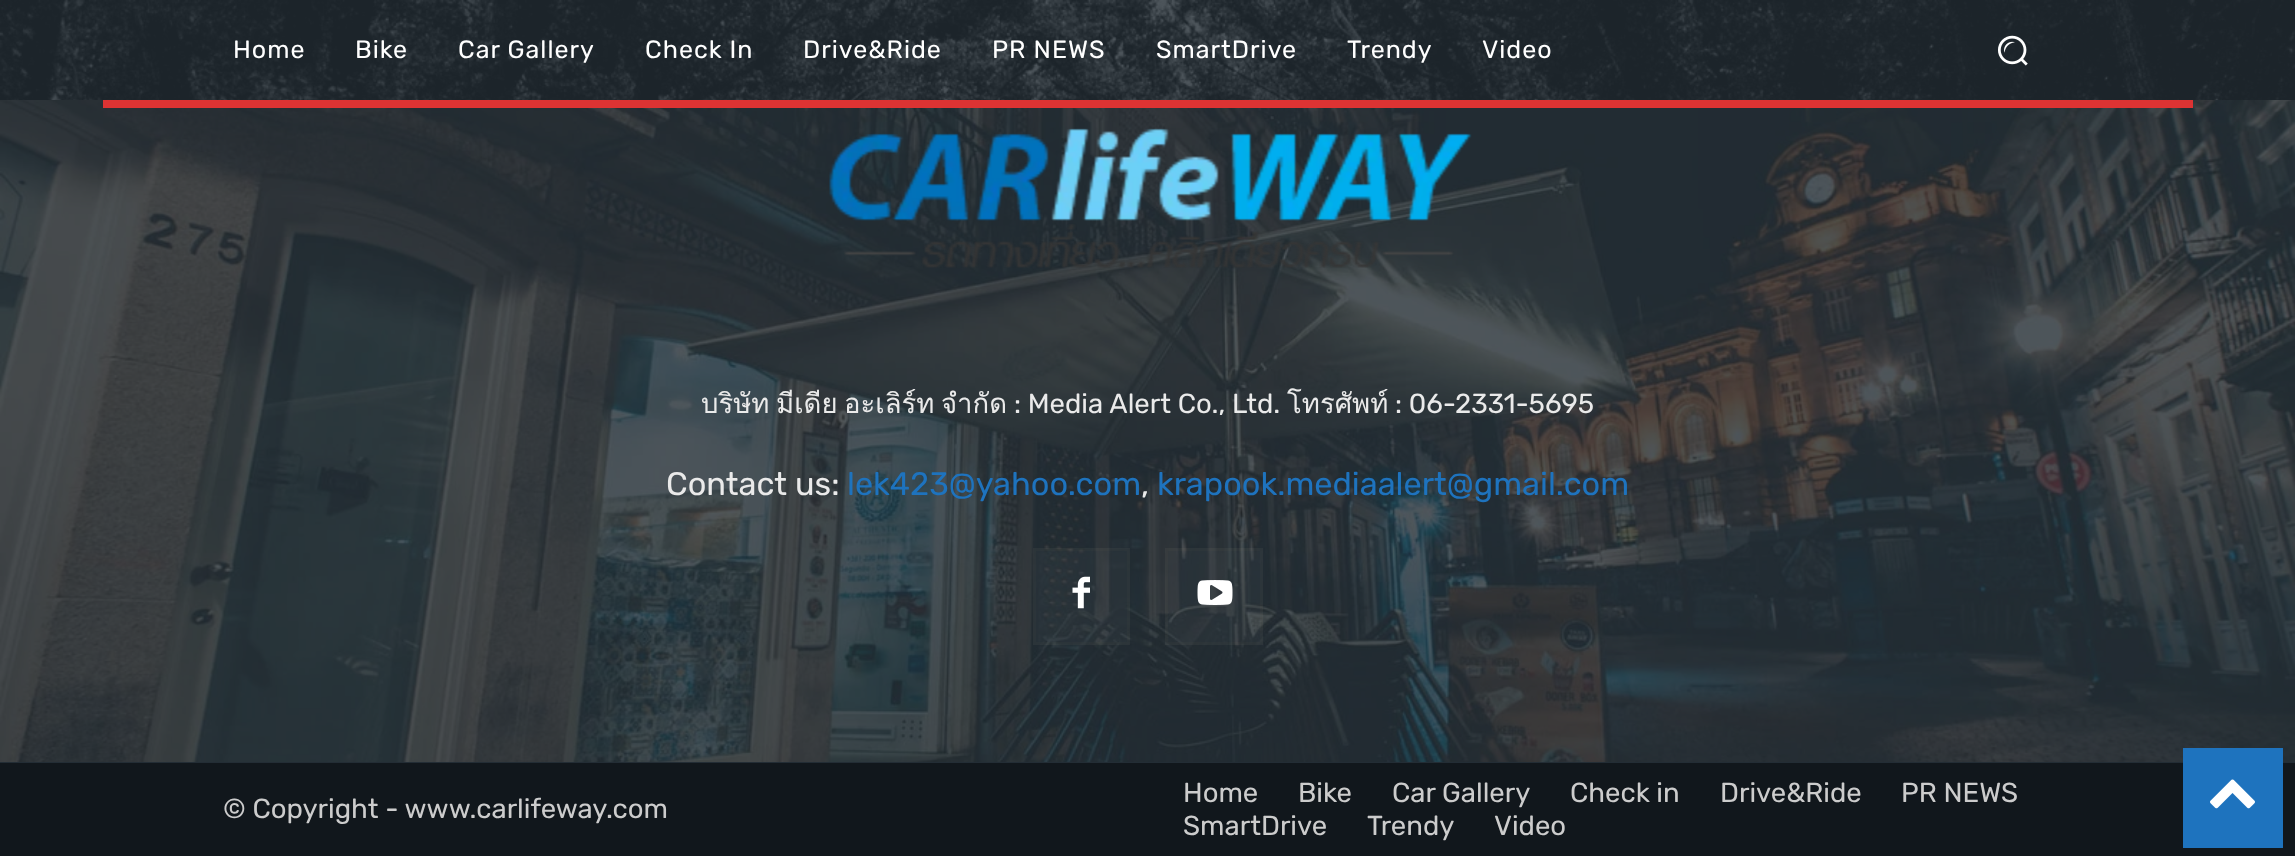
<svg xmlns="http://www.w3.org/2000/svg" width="2295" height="856">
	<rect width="100%" height="100%" fill="#232D35" />
	<image x="0" y="0" width="2295" height="100" href="assets/img1.png" />
	<g font-family="Rubik" font-size="25" letter-spacing="1" fill="#FFFFFF">
		<text x="233" y="58">Home</text>
		<text x="355" y="58">Bike</text>
		<text x="458" y="58">Car Gallery</text>
		<text x="645" y="58">Check In</text>
		<text x="803" y="58">Drive&amp;Ride</text>
		<text x="992" y="58">PR NEWS</text>
		<text x="1156" y="58">SmartDrive</text>
		<text x="1347" y="58">Trendy</text>
		<text x="1482" y="58">Video</text>
	</g>
	<image x="1998" y="35" width="30" height="31" href="assets/img2.png" />
	<image x="0" y="100" width="2295" height="662" href="assets/img3.png" />
	<rect x="103" y="100" width="2090" height="8" fill="#DD3333" />
	<image x="829" y="128" width="643" height="140" href="assets/img4.png" />
	<g font-family="Loma" font-size="27.5" fill="#EAEAEA">
		<text x="701" y="413">บริษัท</text>
		<text x="776" y="413">มีเดีย</text>
		<text x="844" y="413">อะเลิร์ท</text>
		<text x="941" y="413">จำกัด</text>
	</g>
	<text x="1014" y="413" font-family="Rubik" font-size="27.5" fill="#EAEAEA">: Media Alert Co., Ltd.</text>
	<text x="1287" y="413" font-family="Loma" font-size="27.5" fill="#EAEAEA">โทรศัพท์</text>
	<text x="1395" y="413" font-family="Rubik" font-size="27.5" fill="#EAEAEA">: 06-2331-5695</text>
	<text x="666" y="495" font-family="Rubik" font-size="32.5" fill="#EAEAEA">Contact us:</text>
	<text x="847" y="495" font-family="Rubik" font-size="32.5" fill="#1E73BE">lek423@yahoo.com</text>
	<text x="1141" y="495" font-family="Rubik" font-size="32.5" fill="#EAEAEA">,</text>
	<text x="1157" y="495" font-family="Rubik" font-size="32.5" fill="#1E73BE">krapook.mediaalert@gmail.com</text>
	<rect x="1033" y="548" width="97" height="97" fill="#FFFFFF" fill-opacity="0.03" />
	<rect x="1034.5" y="549.5" width="94" height="94" fill="none" stroke="#CB9558" stroke-opacity="0.03" stroke-width="3" />
	<image x="1072" y="576" width="18" height="33" href="assets/img5.png" />
	<rect x="1165" y="548" width="98" height="97" fill="#FFFFFF" fill-opacity="0.03" />
	<rect x="1166.5" y="549.5" width="95" height="94" fill="none" stroke="#CB9558" stroke-opacity="0.03" stroke-width="3" />
	<image x="1197" y="580" width="36" height="25" href="assets/img6.png" />
	<rect x="0" y="763" width="2295" height="93" fill="#11171C" />
	<g font-family="Rubik" font-size="27.5" fill="#CCCCCC">
		<text x="223" y="818">© Copyright - www.carlifeway.com</text>
		<text x="1183" y="802">Home</text>
		<text x="1298" y="802">Bike</text>
		<text x="1392" y="802">Car Gallery</text>
		<text x="1570" y="802">Check in</text>
		<text x="1720" y="802">Drive&amp;Ride</text>
		<text x="1901" y="802">PR NEWS</text>
		<text x="1183" y="835">SmartDrive</text>
		<text x="1367" y="835">Trendy</text>
		<text x="1494" y="835">Video</text>
	</g>
	<rect x="2183" y="748" width="100" height="100" fill="#1E73BE" />
	<image x="2210" y="779" width="45" height="30" href="assets/img7.png" />
</svg>
